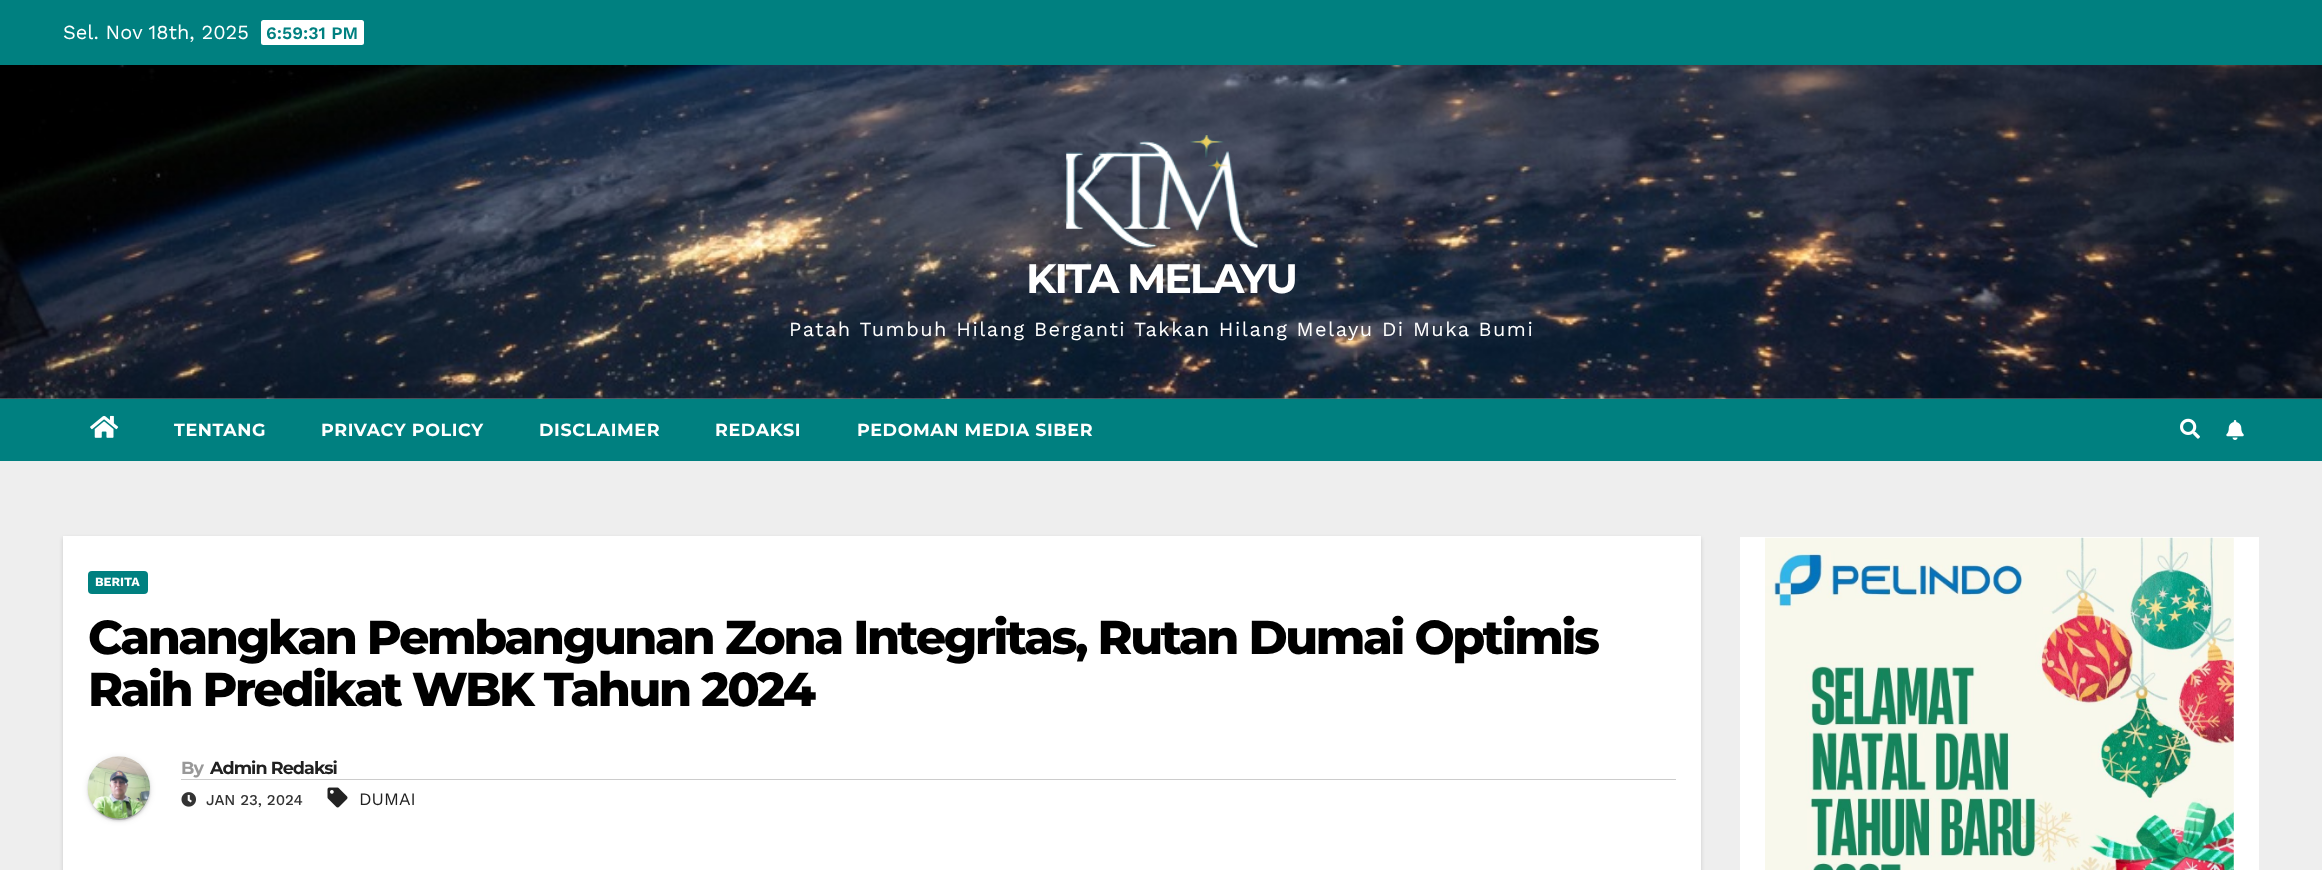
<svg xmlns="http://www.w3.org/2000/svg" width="2322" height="870">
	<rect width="100%" height="100%" fill="#EEEEEE" />
	<rect x="0" y="0" width="2322" height="65" fill="#008080" />
	<text x="63" y="39" font-family="Work Sans" font-size="20" fill="#FFFFFF">Sel. Nov 18th, 2025</text>
	<rect x="261" y="20" width="103" height="25" rx="2.5" fill="#FFFFFF" />
	<text x="266" y="39" font-family="Work Sans" font-size="17.5" font-weight="600" fill="#008080">6:59:31 PM</text>
	<image x="0" y="65" width="2322" height="334" href="assets/img1.png" />
	<image x="1066" y="135" width="192" height="113" href="assets/img2.png" />
	<text x="1026" y="293" font-family="Montserrat" font-size="41.25" font-weight="700" letter-spacing="-2.1" fill="#FFFFFF">KITA MELAYU</text>
	<text x="789" y="336" font-family="Work Sans" font-size="20" letter-spacing="1.5" fill="#FFFFFF">Patah Tumbuh Hilang Berganti Takkan Hilang Melayu Di Muka Bumi</text>
	<rect x="0" y="399" width="2322" height="62" fill="#008080" />
	<image x="90" y="415" width="29" height="23" href="assets/img3.png" />
	<g font-family="Montserrat" font-size="17.5" font-weight="700" letter-spacing="0.6" fill="#FFFFFF">
		<text x="174" y="436">TENTANG</text>
		<text x="321" y="436">PRIVACY POLICY</text>
		<text x="539" y="436">DISCLAIMER</text>
		<text x="715" y="436">REDAKSI</text>
		<text x="857" y="436">PEDOMAN MEDIA SIBER</text>
	</g>
	<image x="2180" y="418" width="20" height="21" href="assets/img4.png" />
	<image x="2226" y="420" width="18" height="20" href="assets/img5.png" />
	<rect x="63" y="538" width="1638" height="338" fill="#000000" fill-opacity="0.15" filter="blur(2px)" />
	<rect x="63" y="536" width="1638" height="334" fill="#FFFFFF" />
	<rect x="88" y="571" width="60" height="23" rx="4" fill="#008080" />
	<text x="95" y="586" font-family="Work Sans" font-size="12.5" font-weight="700" fill="#FFFFFF">BERITA</text>
	<g font-family="Montserrat" font-size="47.5" font-weight="800" letter-spacing="-2.38" fill="#000000">
		<text x="88" y="654">Canangkan Pembangunan Zona Integritas, Rutan Dumai Optimis</text>
		<text x="88" y="706">Raih Predikat WBK Tahun 2024</text>
	</g>
	<rect x="88" y="758" width="62" height="62" rx="31" fill="#000000" fill-opacity="0.12" filter="blur(3px)" />
	<rect x="90" y="763" width="58" height="57" rx="28.5" fill="#000000" fill-opacity="0.2" filter="blur(0.5px)" />
	<rect x="88" y="759" width="62" height="62" rx="31" fill="#000000" fill-opacity="0.14" filter="blur(1px)" />
	<image x="87" y="756" width="63" height="63" href="assets/img6.png" />
	<rect x="181" y="779" width="1495" height="1" fill="#CCCCCC" />
	<text x="181" y="774" font-family="Montserrat" font-size="17.5" font-weight="700" letter-spacing="-0.9" fill="#999999">By</text>
	<text x="210" y="774" font-family="Montserrat" font-size="17.5" font-weight="700" letter-spacing="-0.9" fill="#212121">Admin Redaksi</text>
	<image x="181" y="792" width="15" height="15" href="assets/img7.png" />
	<text x="206" y="805" font-family="Work Sans" font-size="15" font-weight="500" fill="#333333">JAN 23, 2024</text>
	<image x="327" y="787" width="21" height="21" href="assets/img8.png" />
	<text x="359" y="805" font-family="Work Sans" font-size="17.5" fill="#212121">DUMAI</text>
	<rect x="1740" y="537" width="519" height="333" fill="#FFFFFF" />
	<image x="1765" y="537" width="469" height="333" href="assets/img9.png" />
</svg>
